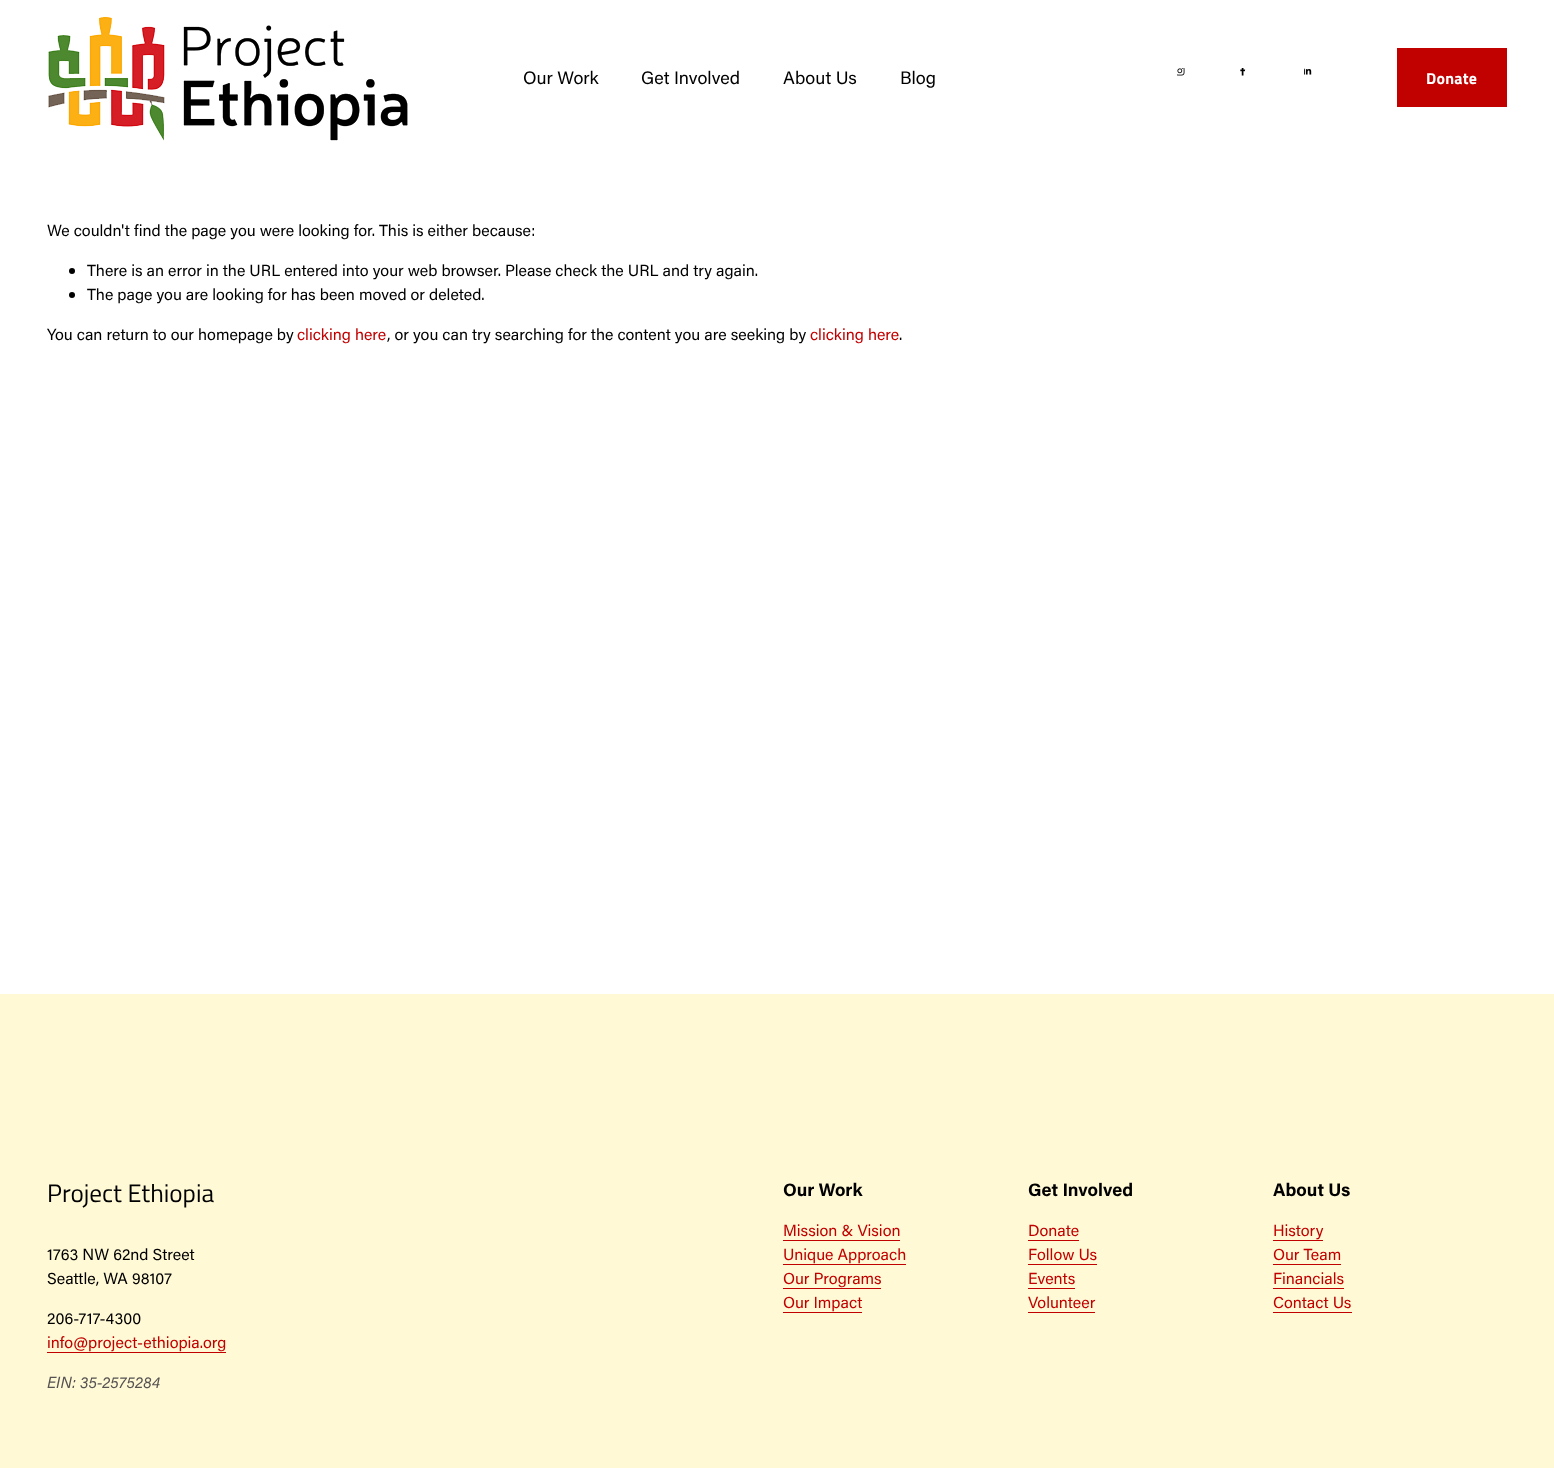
<svg xmlns="http://www.w3.org/2000/svg" width="1554" height="1468">
	<rect width="100%" height="100%" fill="#FFFFFF" />
	<image x="48" y="16" width="360" height="125" href="assets/img1.png" />
	<g font-family="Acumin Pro" font-size="18" fill="#000000">
		<text x="523" y="84">Our Work</text>
		<text x="641" y="84">Get Involved</text>
		<text x="783" y="84">About Us</text>
		<text x="900" y="84">Blog</text>
	</g>
	<image x="1177" y="68" width="8" height="8" href="assets/img2.png" />
	<image x="1240" y="68" width="6" height="8" href="assets/img3.png" />
	<image x="1304" y="68" width="8" height="7" href="assets/img4.png" />
	<rect x="1397" y="48" width="110" height="59" fill="#C10000" />
	<text x="1426" y="84" font-family="Titillium Web" font-size="16" font-weight="700" letter-spacing="0.25" fill="#FFFFFF">Donate</text>
	<text x="47" y="236" font-family="Acumin Pro" font-size="16" fill="#000000">We couldn't find the page you were looking for. This is either because:</text>
	<circle cx="72" cy="271" r="3" fill="#000000" />
	<text x="87" y="276" font-family="Acumin Pro" font-size="16" fill="#000000">There is an error in the URL entered into your web browser. Please check the URL and try again.</text>
	<circle cx="72" cy="295" r="3" fill="#000000" />
	<g font-family="Acumin Pro" font-size="16" fill="#000000">
		<text x="87" y="300">The page you are looking for has been moved or deleted.</text>
		<text x="47" y="340">You can return to our homepage by</text>
	</g>
	<text x="297" y="340" font-family="Acumin Pro" font-size="16" fill="#C10000">clicking here</text>
	<text x="387" y="340" font-family="Acumin Pro" font-size="16" fill="#000000">, or you can try searching for the content you are seeking by</text>
	<text x="810" y="340" font-family="Acumin Pro" font-size="16" fill="#C10000">clicking here</text>
	<text x="899" y="340" font-family="Acumin Pro" font-size="16" fill="#000000">.</text>
	<rect x="0" y="994" width="1554" height="474" fill="#FFF9D6" />
	<text x="47" y="1202" font-family="Titillium Web" font-size="25.25" fill="#000000">Project Ethiopia</text>
	<g font-family="Acumin Pro" font-size="16" fill="#000000">
		<text x="47" y="1260">1763 NW 62nd Street</text>
		<text x="47" y="1284">Seattle, WA 98107</text>
		<text x="47" y="1324">206-717-4300</text>
	</g>
	<text x="47" y="1348" font-family="Acumin Pro" font-size="16" fill="#C10000">info@project-ethiopia.org</text>
	<rect x="47" y="1352" width="179" height="1" fill="#C10000" />
	<text x="47" y="1388" font-family="Acumin Pro" font-size="16" font-style="italic" fill="#555252">EIN: 35-2575284</text>
	<text x="783" y="1196" font-family="Acumin Pro" font-size="18" font-weight="700" fill="#000000">Our Work</text>
	<text x="783" y="1236" font-family="Acumin Pro" font-size="16" fill="#C10000">Mission &amp; Vision</text>
	<rect x="783" y="1240" width="117" height="1" fill="#C10000" />
	<text x="783" y="1260" font-family="Acumin Pro" font-size="16" fill="#C10000">Unique Approach</text>
	<rect x="783" y="1264" width="123" height="1" fill="#C10000" />
	<text x="783" y="1284" font-family="Acumin Pro" font-size="16" fill="#C10000">Our Programs</text>
	<rect x="783" y="1288" width="98" height="1" fill="#C10000" />
	<text x="783" y="1308" font-family="Acumin Pro" font-size="16" fill="#C10000">Our Impact</text>
	<rect x="783" y="1312" width="79" height="1" fill="#C10000" />
	<text x="1028" y="1196" font-family="Acumin Pro" font-size="18" font-weight="700" fill="#000000">Get Involved</text>
	<text x="1028" y="1236" font-family="Acumin Pro" font-size="16" fill="#C10000">Donate</text>
	<rect x="1028" y="1240" width="51" height="1" fill="#C10000" />
	<text x="1028" y="1260" font-family="Acumin Pro" font-size="16" fill="#C10000">Follow Us</text>
	<rect x="1028" y="1264" width="69" height="1" fill="#C10000" />
	<text x="1028" y="1284" font-family="Acumin Pro" font-size="16" fill="#C10000">Events</text>
	<rect x="1028" y="1288" width="47" height="1" fill="#C10000" />
	<text x="1028" y="1308" font-family="Acumin Pro" font-size="16" fill="#C10000">Volunteer</text>
	<rect x="1028" y="1312" width="67" height="1" fill="#C10000" />
	<text x="1273" y="1196" font-family="Acumin Pro" font-size="18" font-weight="700" fill="#000000">About Us</text>
	<text x="1273" y="1236" font-family="Acumin Pro" font-size="16" fill="#C10000">History</text>
	<rect x="1273" y="1240" width="50" height="1" fill="#C10000" />
	<text x="1273" y="1260" font-family="Acumin Pro" font-size="16" fill="#C10000">Our Team</text>
	<rect x="1273" y="1264" width="68" height="1" fill="#C10000" />
	<text x="1273" y="1284" font-family="Acumin Pro" font-size="16" fill="#C10000">Financials</text>
	<rect x="1273" y="1288" width="71" height="1" fill="#C10000" />
	<text x="1273" y="1308" font-family="Acumin Pro" font-size="16" fill="#C10000">Contact Us</text>
	<rect x="1273" y="1312" width="79" height="1" fill="#C10000" />
</svg>
